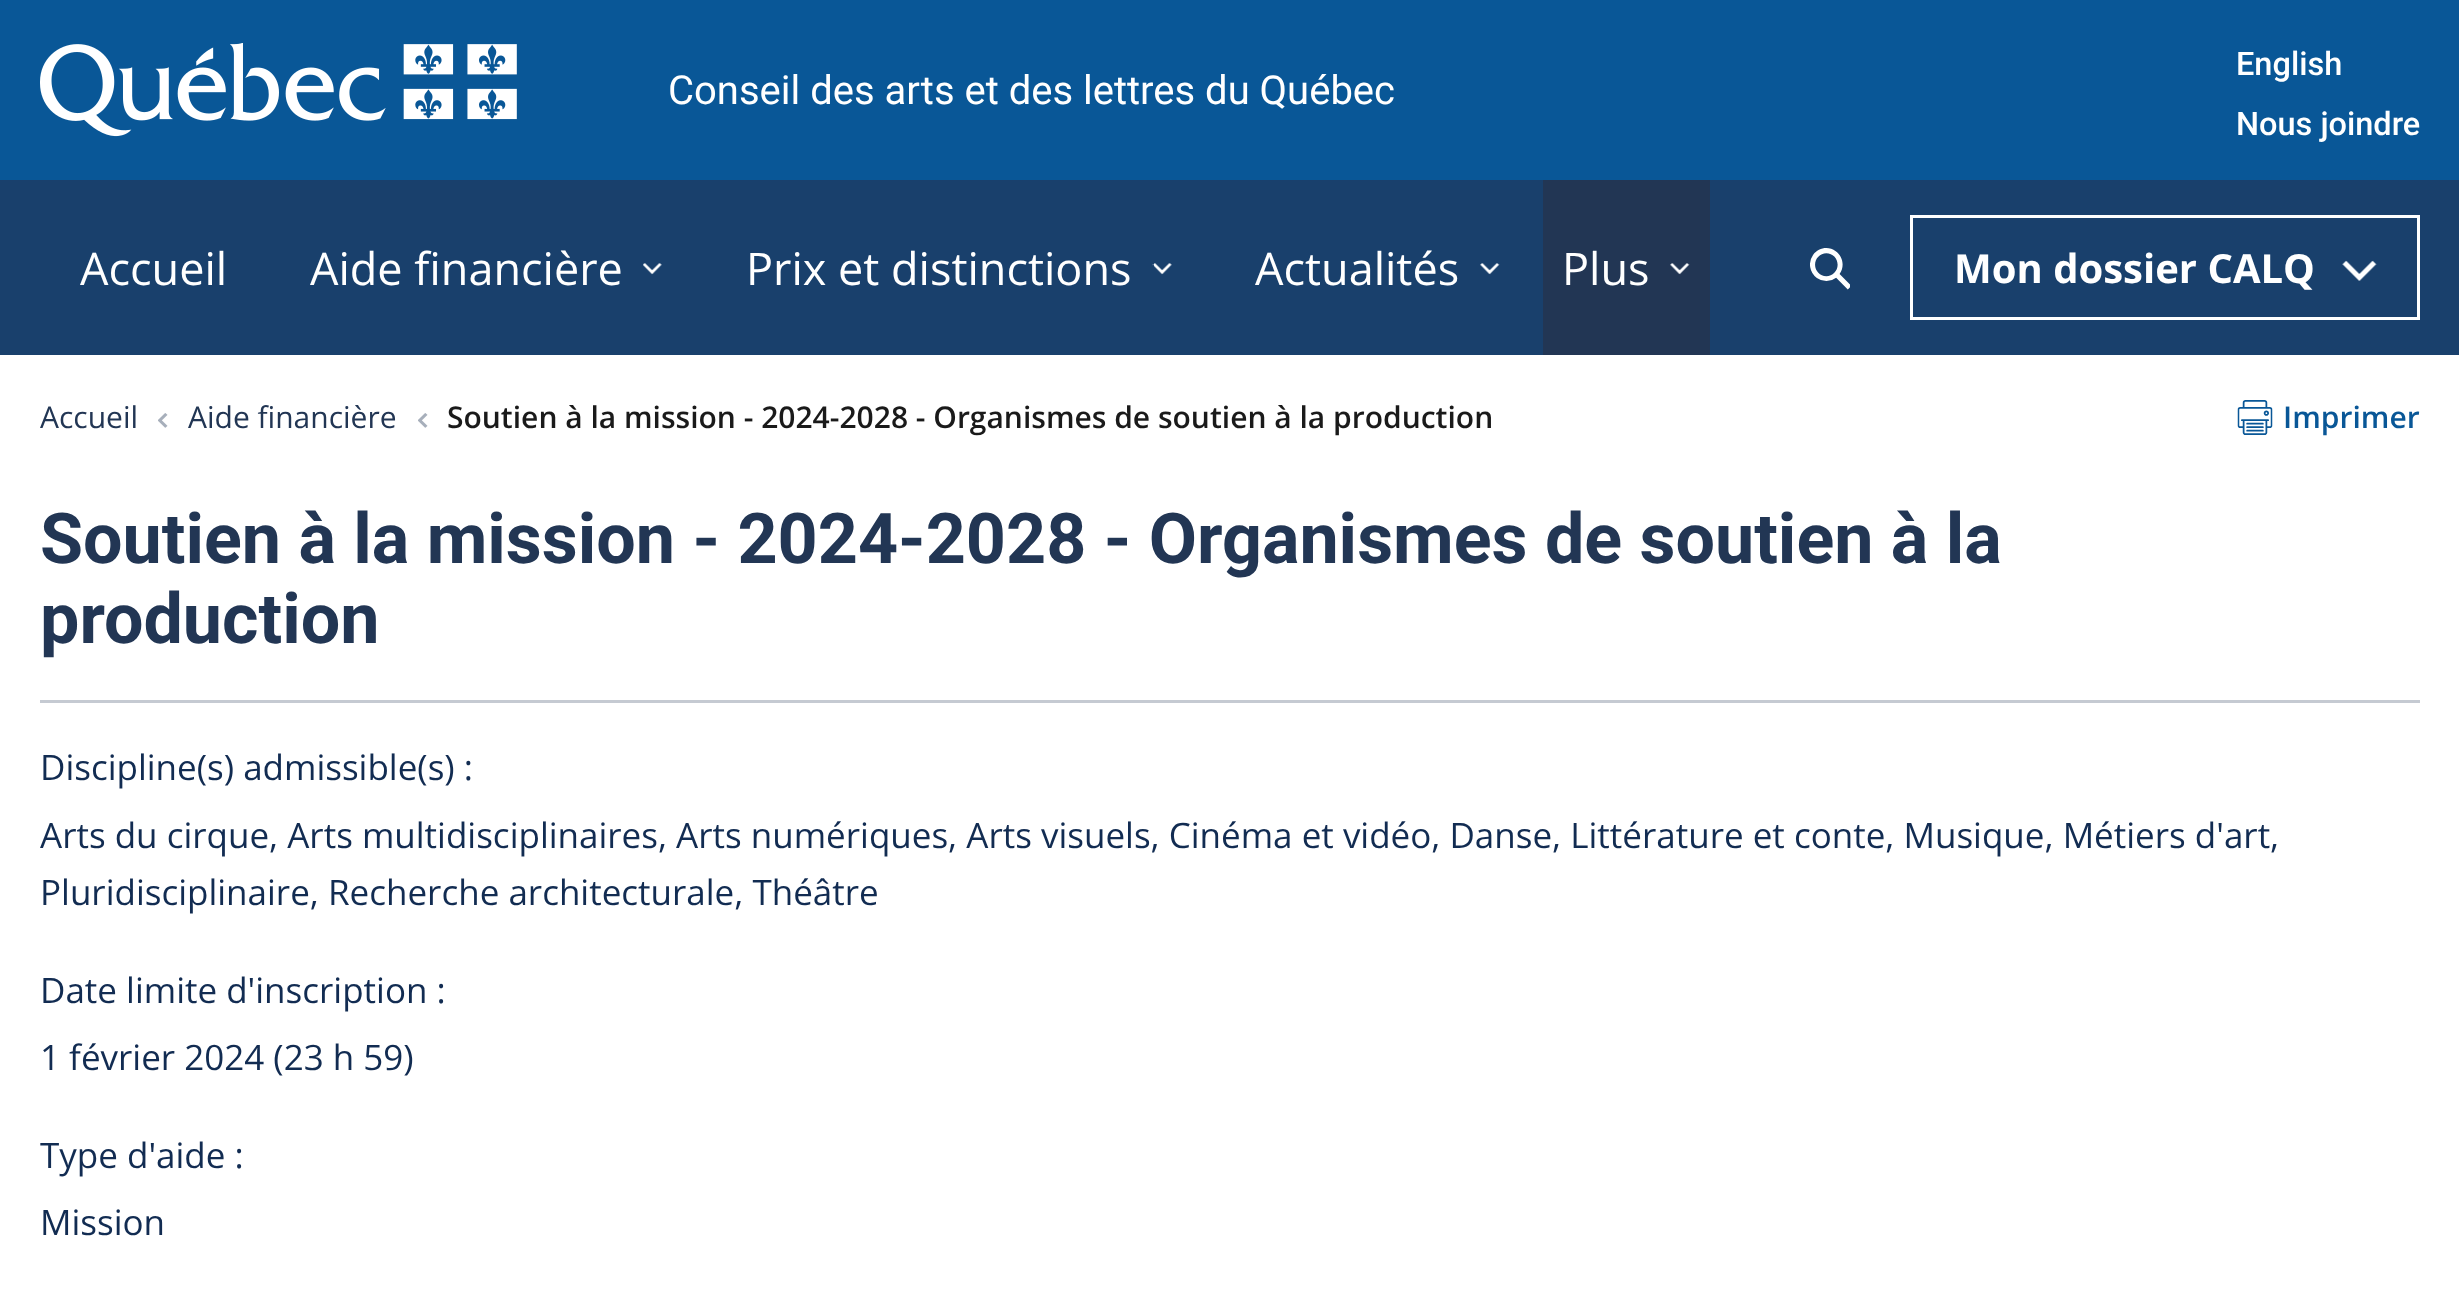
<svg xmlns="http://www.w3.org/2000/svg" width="2459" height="1310">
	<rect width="100%" height="100%" fill="#FFFFFF" />
	<rect x="0" y="0" width="2459" height="180" fill="#095797" />
	<image x="40" y="43" width="477" height="94" href="assets/img1.png" />
	<text x="668" y="104" font-family="Roboto" font-size="40" fill="#FFFFFF">Conseil des arts et des lettres du Québec</text>
	<g font-family="Roboto" font-size="32.5" font-weight="500" fill="#FFFFFF">
		<text x="2236" y="75">English</text>
		<text x="2236" y="135">Nous joindre</text>
	</g>
	<rect x="0" y="180" width="2459" height="175" fill="#19406C" />
	<g font-family="Open Sans" font-size="45" fill="#FFFFFF">
		<text x="80" y="285">Accueil</text>
		<text x="310" y="285">Aide financière</text>
	</g>
	<image x="643" y="263" width="19" height="12" href="assets/img2.png" />
	<text x="746" y="285" font-family="Open Sans" font-size="45" fill="#FFFFFF">Prix et distinctions</text>
	<image x="1152" y="263" width="20" height="12" href="assets/img3.png" />
	<text x="1255" y="285" font-family="Open Sans" font-size="45" fill="#FFFFFF">Actualités</text>
	<image x="1480" y="263" width="20" height="12" href="assets/img4.png" />
	<rect x="1543" y="180" width="167" height="175" fill="#223654" />
	<text x="1562" y="285" font-family="Open Sans" font-size="45" fill="#FFFFFF">Plus</text>
	<image x="1670" y="263" width="20" height="12" href="assets/img5.png" />
	<image x="1810" y="248" width="40" height="42" href="assets/img6.png" />
	<rect x="1911.5" y="216.5" width="507" height="102" fill="none" stroke="#FFFFFF" stroke-width="3" />
	<text x="1954" y="283" font-family="Open Sans" font-size="40" font-weight="700" fill="#FFFFFF">Mon dossier CALQ</text>
	<image x="2342" y="260" width="35" height="21" href="assets/img7.png" />
	<text x="40" y="428" font-family="Open Sans" font-size="30" fill="#223654">Accueil</text>
	<image x="158" y="413" width="10" height="15" href="assets/img8.png" />
	<text x="188" y="428" font-family="Open Sans" font-size="30" fill="#223654">Aide financière</text>
	<image x="418" y="413" width="10" height="15" href="assets/img8.png" />
	<text x="447" y="428" font-family="Open Sans" font-size="30" font-weight="600" fill="#1A1A1A">Soutien à la mission - 2024-2028 - Organismes de soutien à la production</text>
	<image x="2237" y="400" width="36" height="35" href="assets/img9.png" />
	<text x="2283" y="428" font-family="Open Sans" font-size="30" font-weight="600" fill="#095797">Imprimer</text>
	<g font-family="Roboto" font-size="70" font-weight="700" fill="#223654">
		<text x="40" y="563">Soutien à la mission - 2024-2028 - Organismes de soutien à la</text>
		<text x="40" y="643">production</text>
	</g>
	<rect x="40" y="700" width="2380" height="3" fill="#C5CAD2" />
	<g font-family="Open Sans" font-size="35" fill="#122C52">
		<text x="40" y="780">Discipline(s) admissible(s) :</text>
		<text x="40" y="848">Arts du cirque, Arts multidisciplinaires, Arts numériques, Arts visuels, Cinéma et vidéo, Danse, Littérature et conte, Musique, Métiers d'art,</text>
		<text x="40" y="905">Pluridisciplinaire, Recherche architecturale, Théâtre</text>
		<text x="40" y="1003">Date limite d'inscription :</text>
		<text x="40" y="1070">1 février 2024 (23 h 59)</text>
		<text x="40" y="1168">Type d'aide :</text>
		<text x="40" y="1235">Mission</text>
	</g>
</svg>
